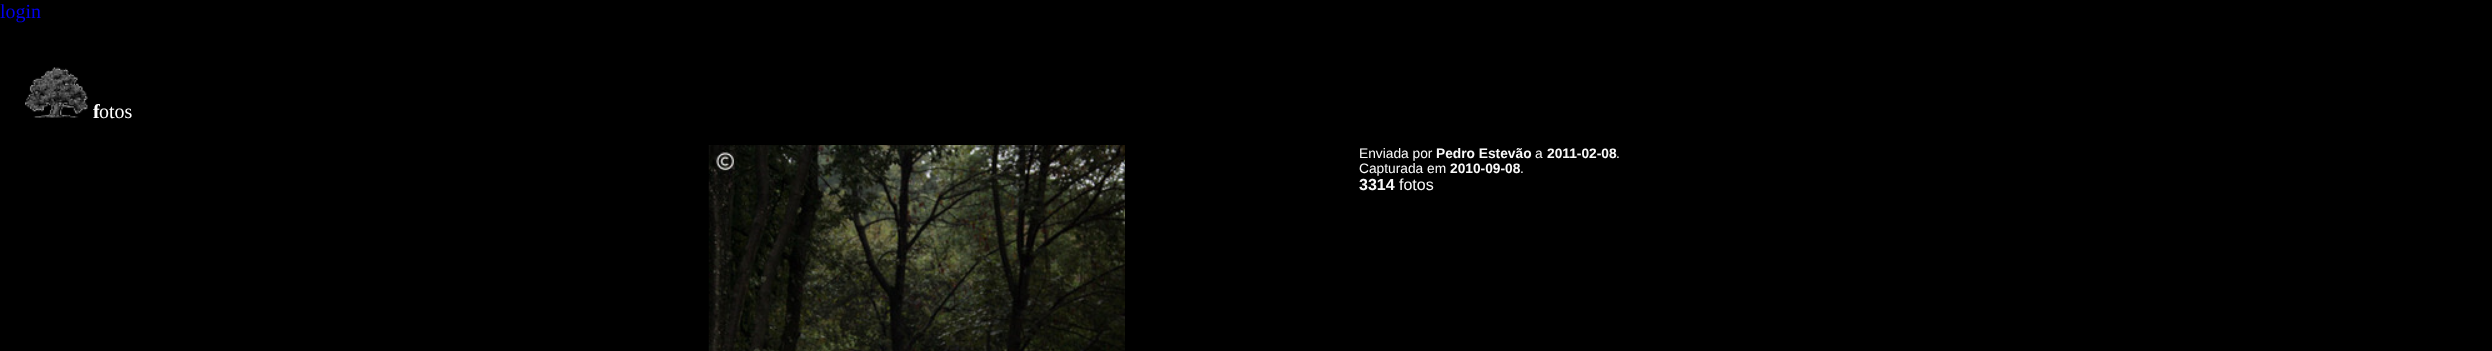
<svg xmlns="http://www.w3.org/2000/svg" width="2492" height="351">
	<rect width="100%" height="100%" fill="#000000" />
	<text x="0" y="18" font-family="Liberation Serif" font-size="20" fill="#0000EE">login</text>
	<image x="25" y="67" width="63" height="51" href="assets/img1.png" />
	<text x="93" y="118" font-family="Liberation Serif" font-size="20" font-weight="700" fill="#FFFFFF">f</text>
	<text x="99" y="118" font-family="Liberation Serif" font-size="20" fill="#FFFFFF">otos</text>
	<image x="708" y="145" width="417" height="206" href="assets/img2.png" />
	<text x="1359" y="158" font-family="Liberation Sans" font-size="13.75" fill="#F9F9F9">Enviada por</text>
	<text x="1436" y="158" font-family="Liberation Sans" font-size="13.75" font-weight="700" fill="#F9F9F9">Pedro Estevão</text>
	<text x="1535" y="158" font-family="Liberation Sans" font-size="13.75" fill="#F9F9F9">a</text>
	<text x="1547" y="158" font-family="Liberation Sans" font-size="13.75" font-weight="700" fill="#F9F9F9">2011-02-08</text>
	<g font-family="Liberation Sans" font-size="13.75" fill="#F9F9F9">
		<text x="1616" y="158">.</text>
		<text x="1359" y="173">Capturada em</text>
	</g>
	<text x="1450" y="173" font-family="Liberation Sans" font-size="13.75" font-weight="700" fill="#F9F9F9">2010-09-08</text>
	<text x="1520" y="173" font-family="Liberation Sans" font-size="13.75" fill="#F9F9F9">.</text>
	<text x="1359" y="190" font-family="Liberation Sans" font-size="16" font-weight="700" fill="#F9F9F9">3314</text>
	<text x="1399" y="190" font-family="Liberation Sans" font-size="16" fill="#F9F9F9">fotos</text>
</svg>
